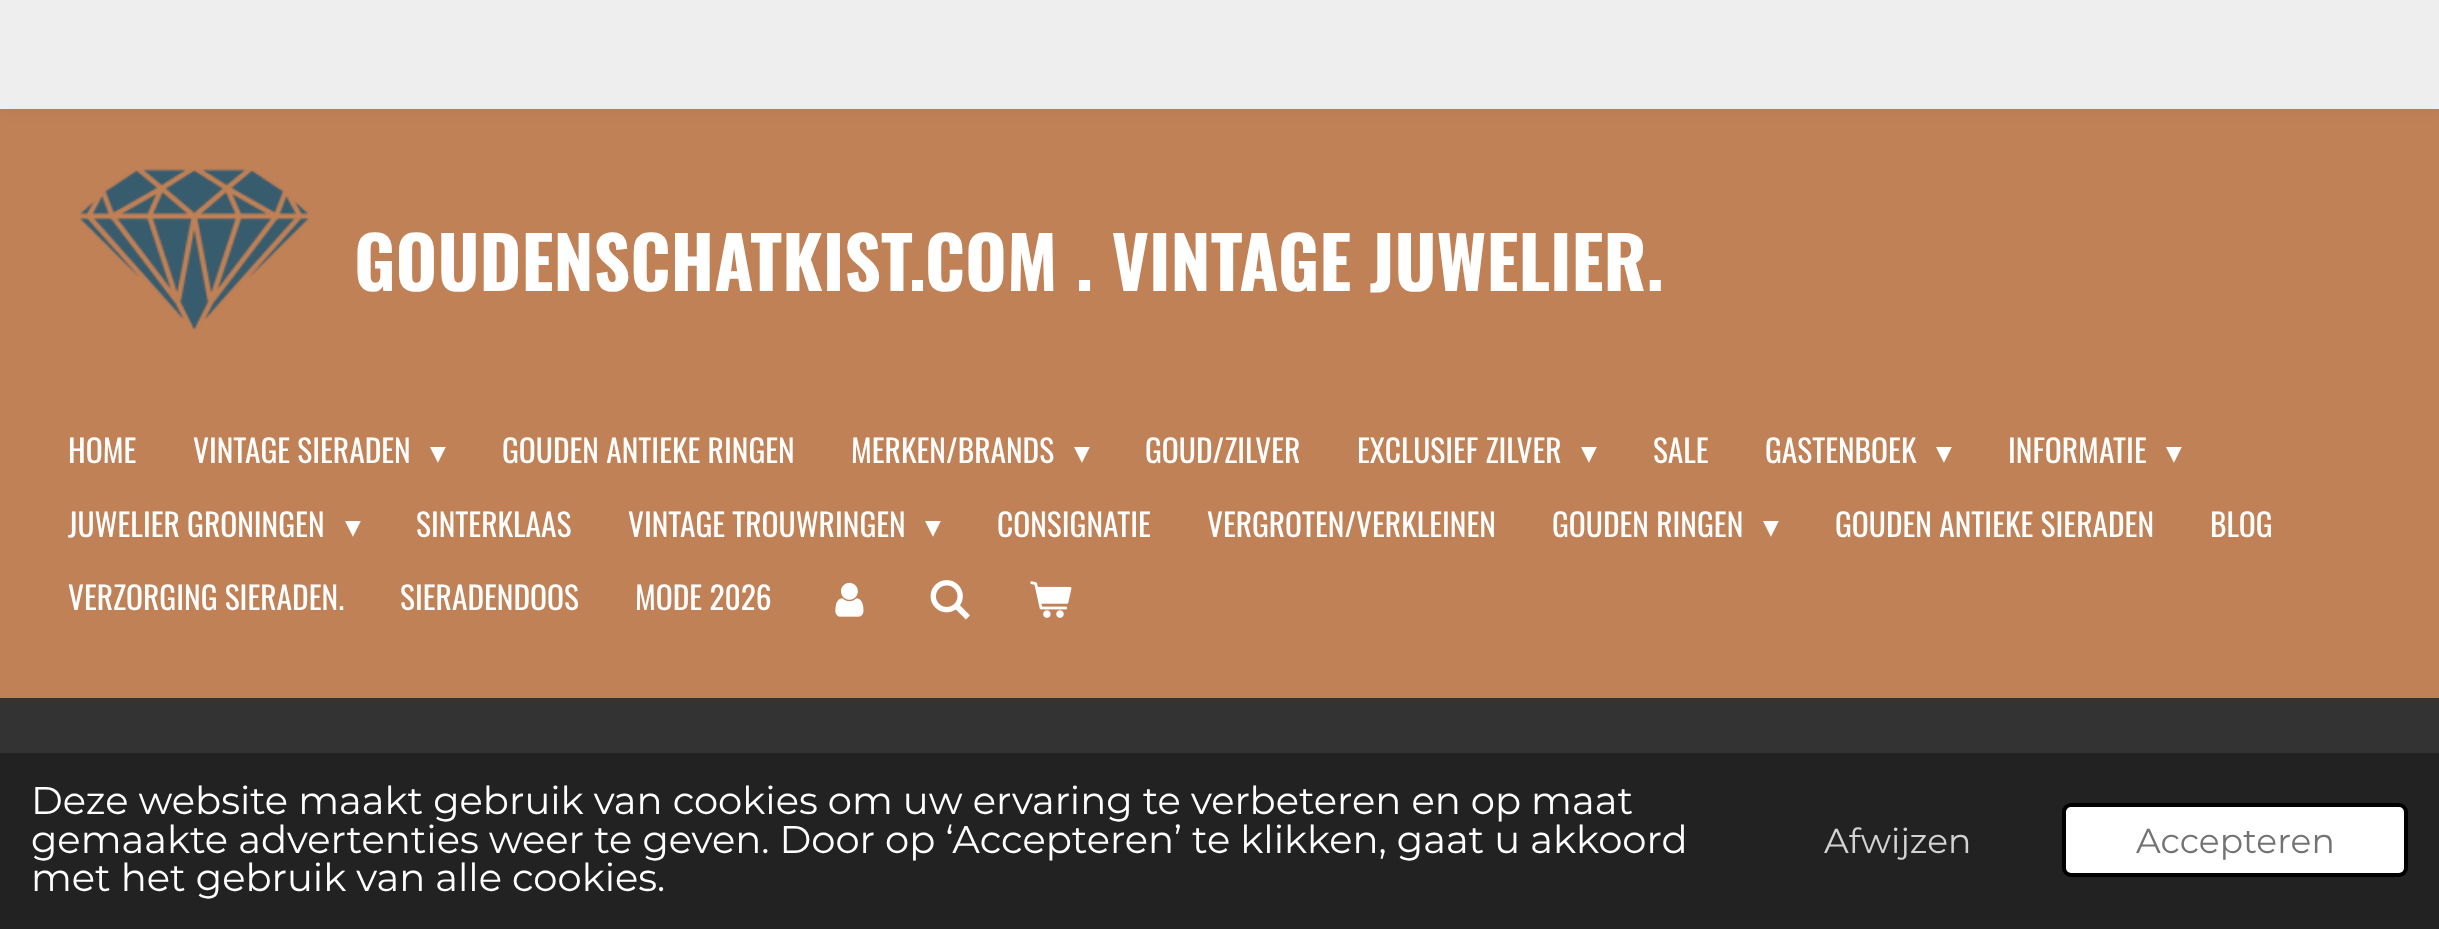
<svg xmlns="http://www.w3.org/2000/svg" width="2439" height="929">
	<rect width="100%" height="100%" fill="#C18157" />
	<rect x="0" y="-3" width="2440" height="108" fill="#000000" fill-opacity="0.1" filter="blur(9px)" />
	<rect x="0" y="0" width="2439" height="109" fill="#EEEEEE" />
	<image x="80" y="168" width="229" height="162" href="assets/img1.png" />
	<text x="354" y="291" font-family="Oswald" font-size="71.5" font-weight="700" fill="#FFFFFF">GOUDENSCHATKIST.COM . VINTAGE JUWELIER.</text>
	<g font-family="Oswald" font-size="31.5" fill="#FFFFFF">
		<text x="68" y="463">HOME</text>
		<text x="193" y="463">VINTAGE SIERADEN</text>
	</g>
	<text x="430" y="463" font-family="DejaVu Sans" font-size="31.5" fill="#FFFFFF">▾</text>
	<g font-family="Oswald" font-size="31.5" fill="#FFFFFF">
		<text x="502" y="463">GOUDEN ANTIEKE RINGEN</text>
		<text x="851" y="463">MERKEN/BRANDS</text>
	</g>
	<text x="1074" y="463" font-family="DejaVu Sans" font-size="31.5" fill="#FFFFFF">▾</text>
	<g font-family="Oswald" font-size="31.5" fill="#FFFFFF">
		<text x="1145" y="463">GOUD/ZILVER</text>
		<text x="1357" y="463">EXCLUSIEF ZILVER</text>
	</g>
	<text x="1581" y="463" font-family="DejaVu Sans" font-size="31.5" fill="#FFFFFF">▾</text>
	<g font-family="Oswald" font-size="31.5" fill="#FFFFFF">
		<text x="1653" y="463">SALE</text>
		<text x="1765" y="463">GASTENBOEK</text>
	</g>
	<text x="1936" y="463" font-family="DejaVu Sans" font-size="31.5" fill="#FFFFFF">▾</text>
	<text x="2008" y="463" font-family="Oswald" font-size="31.5" fill="#FFFFFF">INFORMATIE</text>
	<text x="2166" y="463" font-family="DejaVu Sans" font-size="31.5" fill="#FFFFFF">▾</text>
	<text x="68" y="537" font-family="Oswald" font-size="31.5" fill="#FFFFFF">JUWELIER GRONINGEN</text>
	<text x="345" y="537" font-family="DejaVu Sans" font-size="31.5" fill="#FFFFFF">▾</text>
	<g font-family="Oswald" font-size="31.5" fill="#FFFFFF">
		<text x="416" y="537">SINTERKLAAS</text>
		<text x="628" y="537">VINTAGE TROUWRINGEN</text>
	</g>
	<text x="925" y="537" font-family="DejaVu Sans" font-size="31.5" fill="#FFFFFF">▾</text>
	<g font-family="Oswald" font-size="31.5" fill="#FFFFFF">
		<text x="997" y="537">CONSIGNATIE</text>
		<text x="1207" y="537">VERGROTEN/VERKLEINEN</text>
		<text x="1552" y="537">GOUDEN RINGEN</text>
	</g>
	<text x="1763" y="537" font-family="DejaVu Sans" font-size="31.5" fill="#FFFFFF">▾</text>
	<g font-family="Oswald" font-size="31.5" fill="#FFFFFF">
		<text x="1835" y="537">GOUDEN ANTIEKE SIERADEN</text>
		<text x="2210" y="537">BLOG</text>
		<text x="68" y="610">VERZORGING SIERADEN.</text>
		<text x="400" y="610">SIERADENDOOS</text>
		<text x="635" y="610">MODE 2026</text>
	</g>
	<image x="835" y="582" width="29" height="35" href="assets/img2.png" />
	<image x="930" y="580" width="40" height="40" href="assets/img3.png" />
	<image x="1030" y="581" width="42" height="37" href="assets/img4.png" />
	<rect x="0" y="698" width="2439" height="55" fill="#333333" />
	<rect x="0" y="753" width="2439" height="176" fill="#222222" />
	<g font-family="Montserrat" font-size="38.5" fill="#FFFFFF">
		<text x="31" y="814">Deze website maakt gebruik van cookies om uw ervaring te verbeteren en op maat</text>
		<text x="31" y="853">gemaakte advertenties weer te geven. Door op ‘Accepteren’ te klikken, gaat u akkoord</text>
		<text x="31" y="891">met het gebruik van alle cookies.</text>
	</g>
	<text x="1824" y="853" font-family="Montserrat" font-size="34.5" fill="#D3D3D3">Afwijzen</text>
	<rect x="2064" y="805" width="342" height="70" rx="7" fill="#FFFFFF" stroke="#000000" stroke-width="4" />
	<text x="2136" y="853" font-family="Montserrat" font-size="34.5" fill="#737373">Accepteren</text>
</svg>
